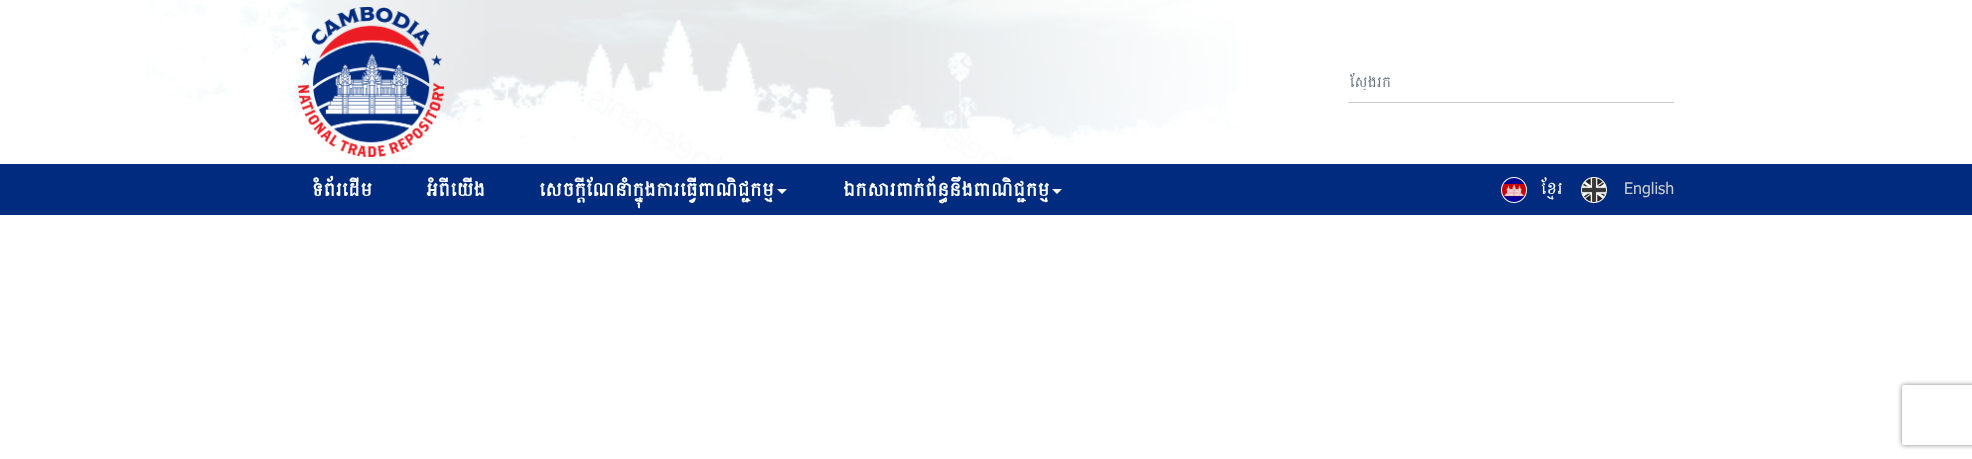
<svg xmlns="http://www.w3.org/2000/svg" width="1972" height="459">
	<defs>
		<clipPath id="clip1"><rect x="1348" y="73" width="326" height="17" /></clipPath>
		<clipPath id="clip2"><path d="M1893 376H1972V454H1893ZM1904 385H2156C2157 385 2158 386 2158 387V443C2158 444 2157 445 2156 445H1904C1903 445 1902 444 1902 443V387C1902 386 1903 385 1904 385Z" clip-rule="evenodd" /></clipPath>
	</defs>
	<rect width="100%" height="100%" fill="#FFFFFF" />
	<image x="146" y="0" width="1091" height="164" href="assets/img1.png" />
	<image x="298" y="7" width="146" height="150" href="assets/img2.png" />
	<rect x="1348" y="102" width="326" height="1" fill="#CCCCCC" />
	<g clip-path="url(#clip1)">
		<text x="1348" y="87" font-family="'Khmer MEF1'" font-size="14" fill="#6C757D">ស្វែងរក</text>
	</g>
	<rect x="0" y="164" width="1972" height="51" fill="#002B7F" />
	<g font-family="'Khmer MEF1'" font-size="18" font-weight="700" fill="#FFFFFF">
		<text x="310" y="196">ទំព័រដើម</text>
		<text x="424" y="196">អំពីយើង</text>
		<text x="537" y="196">សេចក្ដីណែនាំក្នុងការធ្វើពាណិជ្ជកម្ម</text>
	</g>
	<path d="M777 189H787L782 194Z" fill="#FFFFFF" />
	<text x="841" y="196" font-family="'Khmer MEF1'" font-size="18" font-weight="700" fill="#FFFFFF">ឯកសារពាក់ព័ន្ធនឹងពាណិជ្ជកម្ម</text>
	<path d="M1052 189H1062L1057 194Z" fill="#FFFFFF" />
	<image x="1501" y="177" width="26" height="26" href="assets/img3.png" />
	<text x="1539" y="194" font-family="'Khmer MEF1'" font-size="16" fill="#FFFFFF">ខ្មែរ</text>
	<image x="1581" y="177" width="26" height="26" href="assets/img4.png" />
	<text x="1624" y="194" font-family="'Khmer MEF1'" font-size="16" fill="#CBCBCB">English</text>
	<g clip-path="url(#clip2)">
		<rect x="1902" y="385" width="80" height="60" rx="2" fill="#808080" filter="blur(2.5px)" />
	</g>
</svg>
